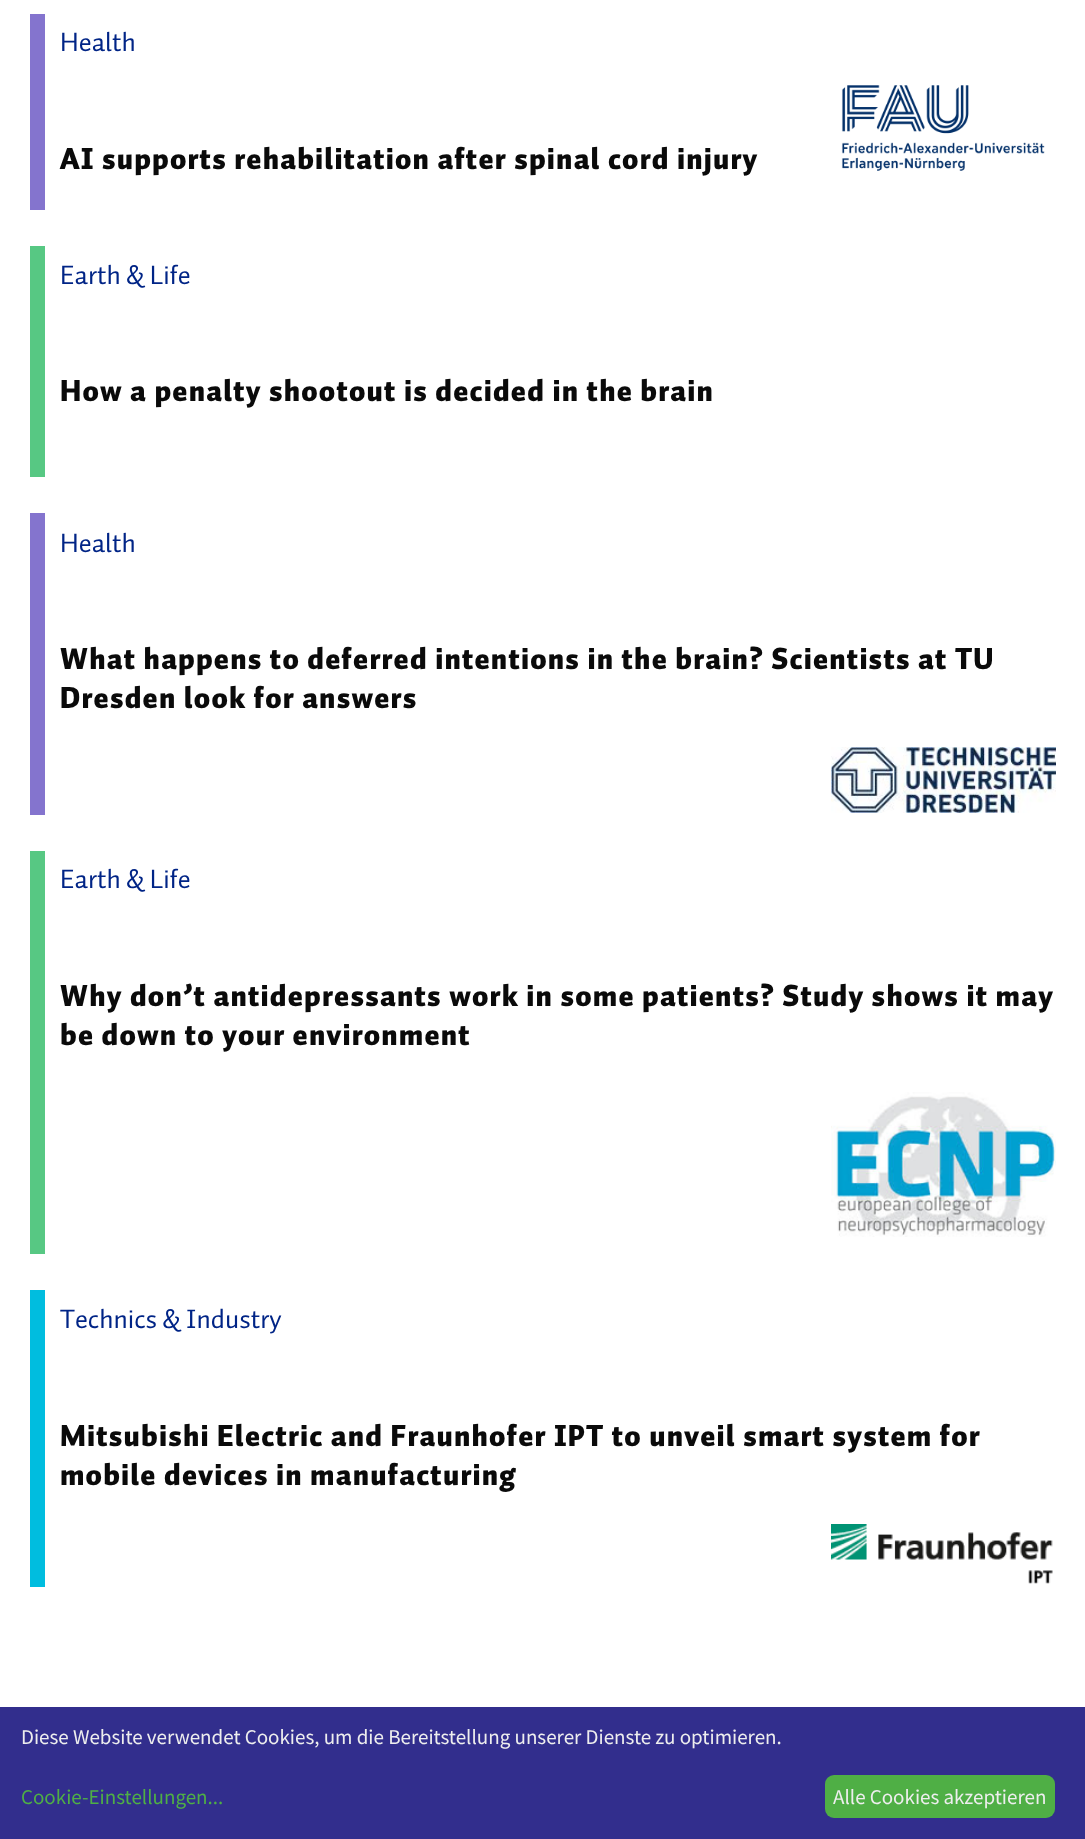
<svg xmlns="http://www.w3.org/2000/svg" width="1085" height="1839">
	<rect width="100%" height="100%" fill="#FFFFFF" />
	<rect x="30" y="14" width="15" height="196" fill="#8474CE" />
	<text x="60" y="51" font-family="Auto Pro" font-size="27" fill="#002486">Health</text>
	<text x="60" y="169" font-family="Auto Pro" font-size="30" font-weight="900" letter-spacing="1.2" fill="#0A0A0A">AI supports rehabilitation after spinal cord injury</text>
	<image x="841" y="85" width="204" height="86" href="assets/img1.png" />
	<rect x="30" y="246" width="15" height="231" fill="#57C883" />
	<text x="60" y="284" font-family="Auto Pro" font-size="27" fill="#002486">Earth &amp; Life</text>
	<text x="60" y="401" font-family="Auto Pro" font-size="30" font-weight="900" letter-spacing="1.2" fill="#0A0A0A">How a penalty shootout is decided in the brain</text>
	<rect x="30" y="513" width="15" height="302" fill="#8474CE" />
	<text x="60" y="552" font-family="Auto Pro" font-size="27" fill="#002486">Health</text>
	<g font-family="Auto Pro" font-size="30" font-weight="900" letter-spacing="1.2" fill="#0A0A0A">
		<text x="60" y="669">What happens to deferred intentions in the brain? Scientists at TU</text>
		<text x="60" y="708">Dresden look for answers</text>
	</g>
	<image x="831" y="747" width="225" height="66" href="assets/img2.png" />
	<rect x="30" y="851" width="15" height="403" fill="#57C883" />
	<text x="60" y="888" font-family="Auto Pro" font-size="27" fill="#002486">Earth &amp; Life</text>
	<g font-family="Auto Pro" font-size="30" font-weight="900" letter-spacing="1.2" fill="#0A0A0A">
		<text x="60" y="1006">Why don’t antidepressants work in some patients? Study shows it may</text>
		<text x="60" y="1045">be down to your environment</text>
	</g>
	<image x="831" y="1092" width="225" height="145" href="assets/img3.png" />
	<rect x="30" y="1290" width="15" height="297" fill="#00BDDF" />
	<text x="60" y="1328" font-family="Auto Pro" font-size="27" fill="#002486">Technics &amp; Industry</text>
	<g font-family="Auto Pro" font-size="30" font-weight="900" letter-spacing="1.2" fill="#0A0A0A">
		<text x="60" y="1446">Mitsubishi Electric and Fraunhofer IPT to unveil smart system for</text>
		<text x="60" y="1485">mobile devices in manufacturing</text>
	</g>
	<image x="831" y="1524" width="222" height="60" href="assets/img4.png" />
	<rect x="0" y="1707" width="1085" height="132" fill="#322E8D" />
	<text x="21" y="1744" font-family="Source Sans Pro" font-size="21" fill="#EEEEEE">Diese Website verwendet Cookies, um die Bereitstellung unserer Dienste zu optimieren.</text>
	<text x="21" y="1804" font-family="Source Sans Pro" font-size="21" fill="#4FAF45">Cookie-Einstellungen...</text>
	<rect x="825" y="1775" width="230" height="43" rx="9" fill="#4FAF45" />
	<text x="833" y="1804" font-family="Source Sans Pro" font-size="21" fill="#EEEEEE">Alle Cookies akzeptieren</text>
</svg>
